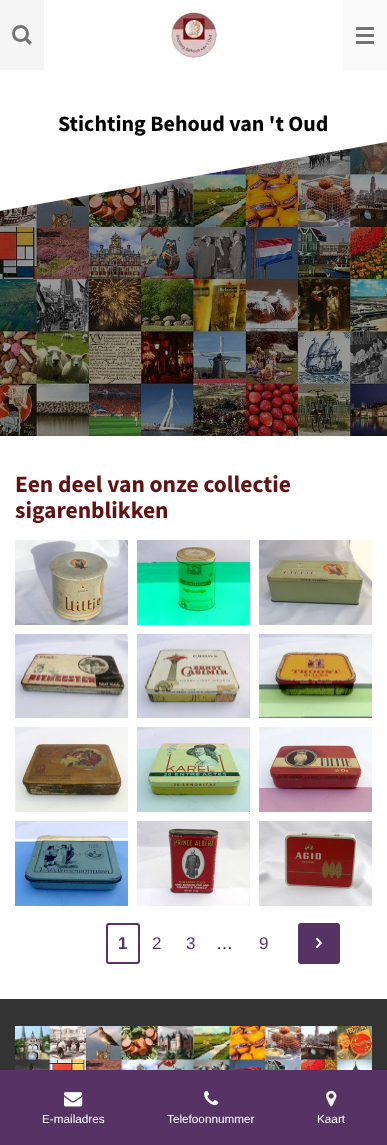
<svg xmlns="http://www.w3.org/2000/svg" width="387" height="1145">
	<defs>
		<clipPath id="clip1"><rect x="0" y="70" width="387" height="366" /></clipPath>
	</defs>
	<rect width="100%" height="100%" fill="#FFFFFF" />
	<rect x="0" y="0" width="44" height="70" fill="#F5F5F5" />
	<circle cx="20.5" cy="33.5" r="7" fill="none" stroke="#737373" stroke-width="3" />
	<path d="M25.5 36.5L32 42.5L29.5 45L23.5 38.5Z" fill="#737373" />
	<image x="169" y="10" width="50" height="50" href="assets/img1.png" />
	<rect x="343" y="0" width="44" height="70" fill="#FAFAFA" />
	<rect x="356" y="34" width="18" height="3" fill="#737373" />
	<rect x="356" y="27" width="18" height="3" fill="#737373" />
	<rect x="356" y="41" width="18" height="3" fill="#737373" />
	<image x="0" y="142" width="387" height="294" href="assets/img2.png" />
	<g clip-path="url(#clip1)">
		<path d="M0-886L387-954V142L0 211Z" fill="#FFFFFF" />
	</g>
	<text x="58" y="131" font-family="Source Sans Pro" font-size="22" font-weight="700" fill="#000000">Stichting Behoud van 't Oud</text>
	<g font-family="Source Sans Pro" font-size="23.5" font-weight="700" fill="#611313">
		<text x="15" y="492">Een deel van onze collectie</text>
		<text x="15" y="518">sigarenblikken</text>
	</g>
	<image x="15" y="540" width="113" height="85" href="assets/img3.png" />
	<image x="137" y="540" width="113" height="85" href="assets/img4.png" />
	<image x="259" y="540" width="113" height="85" href="assets/img5.png" />
	<image x="15" y="634" width="113" height="84" href="assets/img6.png" />
	<image x="137" y="634" width="113" height="84" href="assets/img7.png" />
	<image x="259" y="634" width="113" height="84" href="assets/img8.png" />
	<image x="15" y="727" width="113" height="85" href="assets/img9.png" />
	<image x="137" y="727" width="113" height="85" href="assets/img10.png" />
	<image x="259" y="727" width="113" height="85" href="assets/img11.png" />
	<image x="15" y="821" width="113" height="85" href="assets/img12.png" />
	<image x="137" y="821" width="113" height="85" href="assets/img13.png" />
	<image x="259" y="821" width="113" height="85" href="assets/img14.png" />
	<rect x="107" y="924" width="32" height="39" rx="2" fill="none" stroke="#563364" stroke-width="2" />
	<text x="118" y="949" font-family="Liberation Sans" font-size="17" font-weight="700" fill="#563364">1</text>
	<g font-family="Liberation Sans" font-size="17" fill="#563364">
		<text x="152" y="949">2</text>
		<text x="186" y="949">3</text>
	</g>
	<text x="216" y="949" font-family="Liberation Sans" font-size="17" fill="#000000">…</text>
	<text x="259" y="949" font-family="Liberation Sans" font-size="17" fill="#563364">9</text>
	<rect x="298" y="923" width="42" height="41" rx="3" fill="#563364" />
	<image x="316" y="937" width="6" height="11" href="assets/img15.png" />
	<rect x="0" y="999" width="387" height="71" fill="#333333" />
	<image x="15" y="1026" width="357" height="44" href="assets/img16.png" />
	<rect x="0" y="1070" width="387" height="75" fill="#563364" />
	<image x="64" y="1092" width="19" height="15" href="assets/img17.png" />
	<text x="42" y="1123" font-family="Liberation Sans" font-size="11.75" fill="#FFFFFF">E-mailadres</text>
	<image x="204" y="1090" width="15" height="16" href="assets/img18.png" />
	<text x="167" y="1123" font-family="Liberation Sans" font-size="11.75" fill="#FFFFFF">Telefoonnummer</text>
	<image x="326" y="1090" width="11" height="17" href="assets/img19.png" />
	<text x="317" y="1123" font-family="Liberation Sans" font-size="11.75" fill="#FFFFFF">Kaart</text>
</svg>
